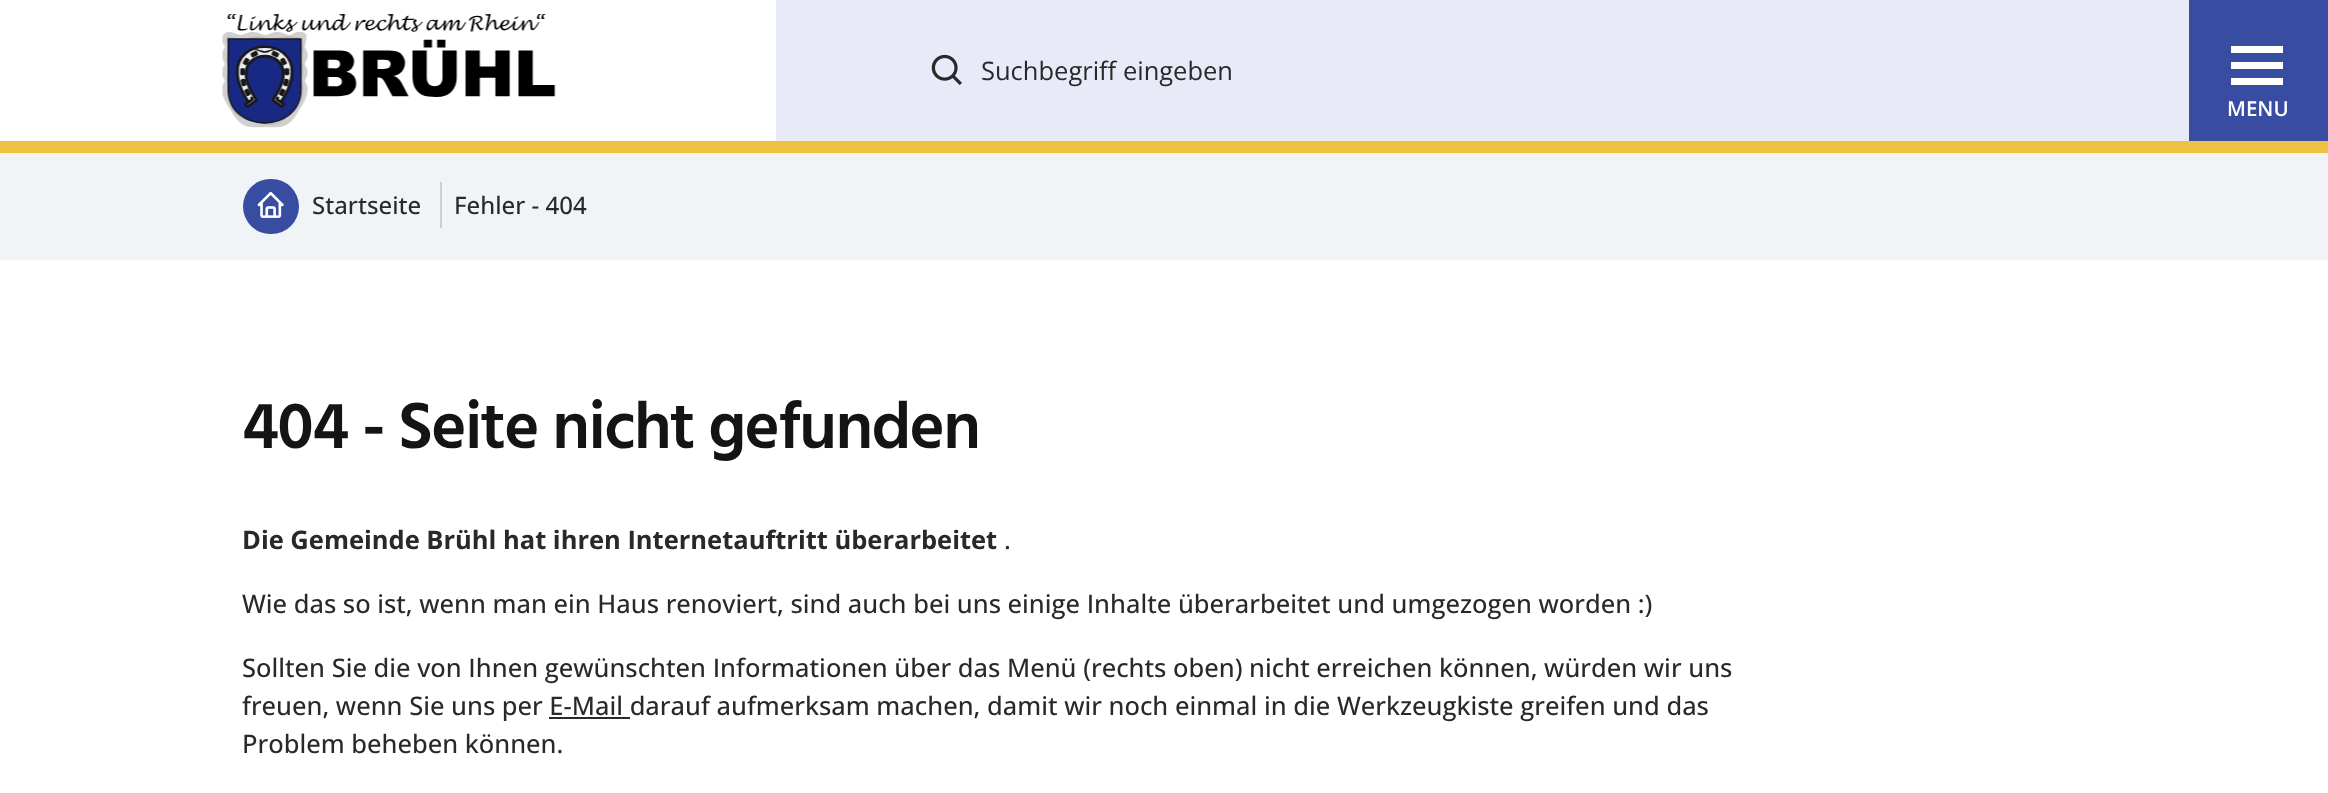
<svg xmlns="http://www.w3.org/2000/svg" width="2328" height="793">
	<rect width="100%" height="100%" fill="#FFFFFF" />
	<image x="222" y="14" width="334" height="114" href="assets/img1.png" />
	<rect x="776" y="0" width="1413" height="141" fill="#E8EBF7" />
	<image x="931" y="54" width="31" height="31" href="assets/img2.png" />
	<text x="981" y="80" font-family="Open Sans" font-size="25.5" fill="#292929">Suchbegriff eingeben</text>
	<rect x="2189" y="0" width="139" height="141" fill="#384DA2" />
	<path d="M2231 46H2283V53H2231ZM2231 62H2283V69H2231ZM2231 78H2283V85H2231Z" fill="#FFFFFF" />
	<text x="2227" y="116" font-family="Open Sans" font-size="20.5" font-weight="600" fill="#FFFFFF">MENU</text>
	<rect x="0" y="153" width="2328" height="107" fill="#F0F4F6" />
	<rect x="0" y="141" width="2328" height="12" fill="#EFC140" />
	<rect x="243" y="179" width="56" height="55" rx="27.5" fill="#384DA2" />
	<image x="257" y="191" width="27" height="27" href="assets/img3.png" />
	<g font-family="Open Sans" font-size="24" font-weight="500" fill="#292929">
		<text x="312" y="214">Startseite</text>
		<text x="454" y="214">Fehler - 404</text>
	</g>
	<rect x="440" y="182" width="2" height="46" fill="#CCCFD1" />
	<text x="242" y="448" font-family="Hind Siliguri" font-size="66.9" font-weight="600" letter-spacing="-1.7" fill="#141414">404 - Seite nicht gefunden</text>
	<text x="242" y="549" font-family="Open Sans" font-size="25.5" font-weight="700" fill="#292929">Die Gemeinde Brühl hat ihren Internetauftritt überarbeitet</text>
	<g font-family="Open Sans" font-size="25.5" font-weight="500" fill="#292929">
		<text x="1004" y="549">.</text>
		<text x="242" y="613">Wie das so ist, wenn man ein Haus renoviert, sind auch bei uns einige Inhalte überarbeitet und umgezogen worden :)</text>
		<text x="242" y="677">Sollten Sie die von Ihnen gewünschten Informationen über das Menü (rechts oben) nicht erreichen können, würden wir uns</text>
		<text x="242" y="715">freuen, wenn Sie uns per E-Mail darauf aufmerksam machen, damit wir noch einmal in die Werkzeugkiste greifen und das</text>
	</g>
	<rect x="549" y="717" width="81" height="2" fill="#292929" />
	<text x="242" y="753" font-family="Open Sans" font-size="25.5" font-weight="500" fill="#292929">Problem beheben können.</text>
</svg>
